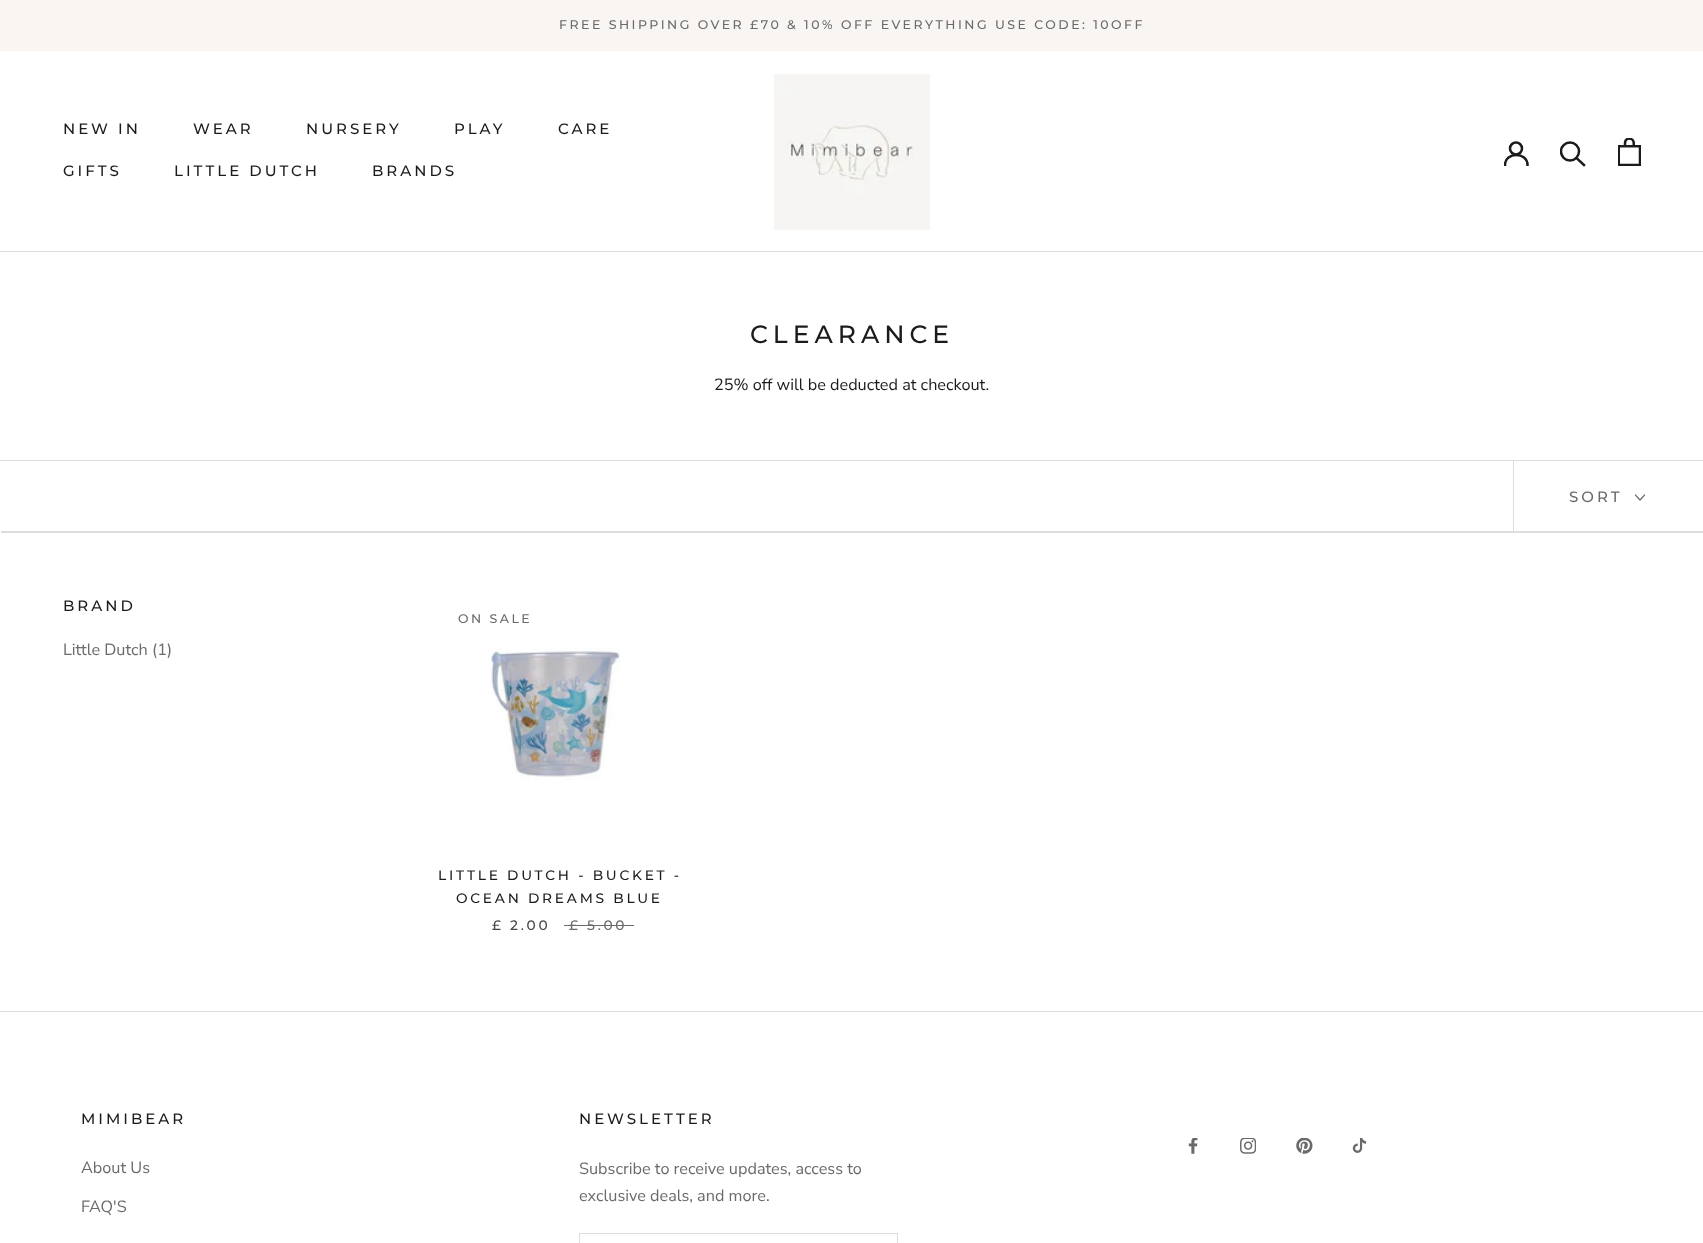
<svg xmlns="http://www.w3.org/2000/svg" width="1703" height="1243">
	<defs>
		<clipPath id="clip1"><rect x="1504" y="141" width="25" height="25" /></clipPath>
		<clipPath id="clip2"><rect x="1560" y="141" width="26" height="27" /></clipPath>
	</defs>
	<rect width="100%" height="100%" fill="#FFFFFF" />
	<rect x="0" y="0" width="1703" height="51" fill="#F9F5F2" />
	<text x="559" y="29" font-family="Montserrat" font-size="12.5" font-weight="500" letter-spacing="2.5" fill="#6A6A6A">FREE SHIPPING OVER £70 &amp; 10% OFF EVERYTHING USE CODE: 10OFF</text>
	<rect x="0" y="251" width="1703" height="1" fill="#DDDDDD" />
	<g font-family="Montserrat" font-size="15" font-weight="500" letter-spacing="3" fill="#1C1B1B">
		<text x="63" y="134">NEW IN</text>
		<text x="193" y="134">WEAR</text>
		<text x="306" y="134">NURSERY</text>
		<text x="454" y="134">PLAY</text>
		<text x="558" y="134">CARE</text>
		<text x="63" y="176">GIFTS</text>
		<text x="174" y="176">LITTLE DUTCH</text>
		<text x="372" y="176">BRANDS</text>
	</g>
	<image x="774" y="74" width="156" height="156" href="assets/img1.png" />
	<g clip-path="url(#clip1)">
		<path d="M1505 165C1505 151.5 1527.5 151.5 1527.5 165" fill="none" stroke="#1C1B1B" stroke-width="2.5" stroke-linecap="square" />
	</g>
	<circle cx="1516" cy="148.5" r="6" fill="none" stroke="#1C1B1B" stroke-width="2.5" />
	<path d="M1584 165L1576.5 158" fill="none" stroke="#1C1B1B" stroke-width="2.5" stroke-linecap="square" />
	<g clip-path="url(#clip2)">
		<circle cx="1570" cy="151.5" r="9" fill="none" stroke="#1C1B1B" stroke-width="2.5" />
	</g>
	<image x="1618" y="138" width="23" height="28" href="assets/img2.png" />
	<text x="750" y="343" font-family="Montserrat" font-size="25" font-weight="500" letter-spacing="5" fill="#1C1B1B">CLEARANCE</text>
	<text x="714" y="390" font-family="Nunito Sans" font-size="16.25" fill="#1C1B1B">25% off will be deducted at checkout.</text>
	<path d="M-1 460V530H0V461H1703V460Z" fill="#DDDDDD" />
	<path d="M1 531V533H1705V463H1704V531Z" fill="#DDDDDD" />
	<rect x="1513" y="461" width="1" height="70" fill="#DDDDDD" />
	<text x="1569" y="502" font-family="Montserrat" font-size="15" font-weight="500" letter-spacing="3" fill="#6A6A6A">SORT</text>
	<path d="M1644.5 495L1640 500L1635.5 495" fill="none" stroke="#6A6A6A" stroke-width="1.2" stroke-linecap="square" />
	<text x="63" y="611" font-family="Montserrat" font-size="15" font-weight="500" letter-spacing="3" fill="#1C1B1B">BRAND</text>
	<text x="63" y="655" font-family="Nunito Sans" font-size="16.25" fill="#6A6A6A">Little Dutch (1)</text>
	<text x="458" y="623" font-family="Montserrat" font-size="12.5" font-weight="500" letter-spacing="2.5" fill="#6A6A6A">ON SALE</text>
	<image x="490" y="648" width="130" height="132" href="assets/img3.png" />
	<g font-family="Montserrat" font-size="13.75" font-weight="500" letter-spacing="2.75" fill="#1C1B1B">
		<text x="438" y="880">LITTLE DUTCH - BUCKET -</text>
		<text x="456" y="903">OCEAN DREAMS BLUE</text>
	</g>
	<text x="492" y="930" font-family="Montserrat" font-size="13.75" font-weight="500" letter-spacing="2.75" fill="#474747">£ 2.00</text>
	<text x="569" y="930" font-family="Montserrat" font-size="13.75" font-weight="500" letter-spacing="2.75" fill="#6A6A6A">£ 5.00</text>
	<rect x="564" y="925" width="70" height="1" fill="#6A6A6A" />
	<rect x="0" y="1011" width="1703" height="1" fill="#DDDDDD" />
	<text x="81" y="1124" font-family="Montserrat" font-size="15" font-weight="500" letter-spacing="3" fill="#1C1B1B">MIMIBEAR</text>
	<g font-family="Nunito Sans" font-size="16.25" fill="#6A6A6A">
		<text x="81" y="1173">About Us</text>
		<text x="81" y="1212">FAQ'S</text>
	</g>
	<text x="579" y="1124" font-family="Montserrat" font-size="15" font-weight="500" letter-spacing="3" fill="#1C1B1B">NEWSLETTER</text>
	<g font-family="Nunito Sans" font-size="16.25" fill="#6A6A6A">
		<text x="579" y="1174">Subscribe to receive updates, access to</text>
		<text x="579" y="1201">exclusive deals, and more.</text>
	</g>
	<rect x="579.5" y="1233.5" width="318" height="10" fill="none" stroke="#DDDDDD" />
	<image x="1188" y="1138" width="10" height="16" href="assets/img4.png" />
	<image x="1240" y="1138" width="16" height="16" href="assets/img5.png" />
	<image x="1296" y="1138" width="17" height="16" href="assets/img6.png" />
	<image x="1352" y="1138" width="14" height="15" href="assets/img7.png" />
</svg>
